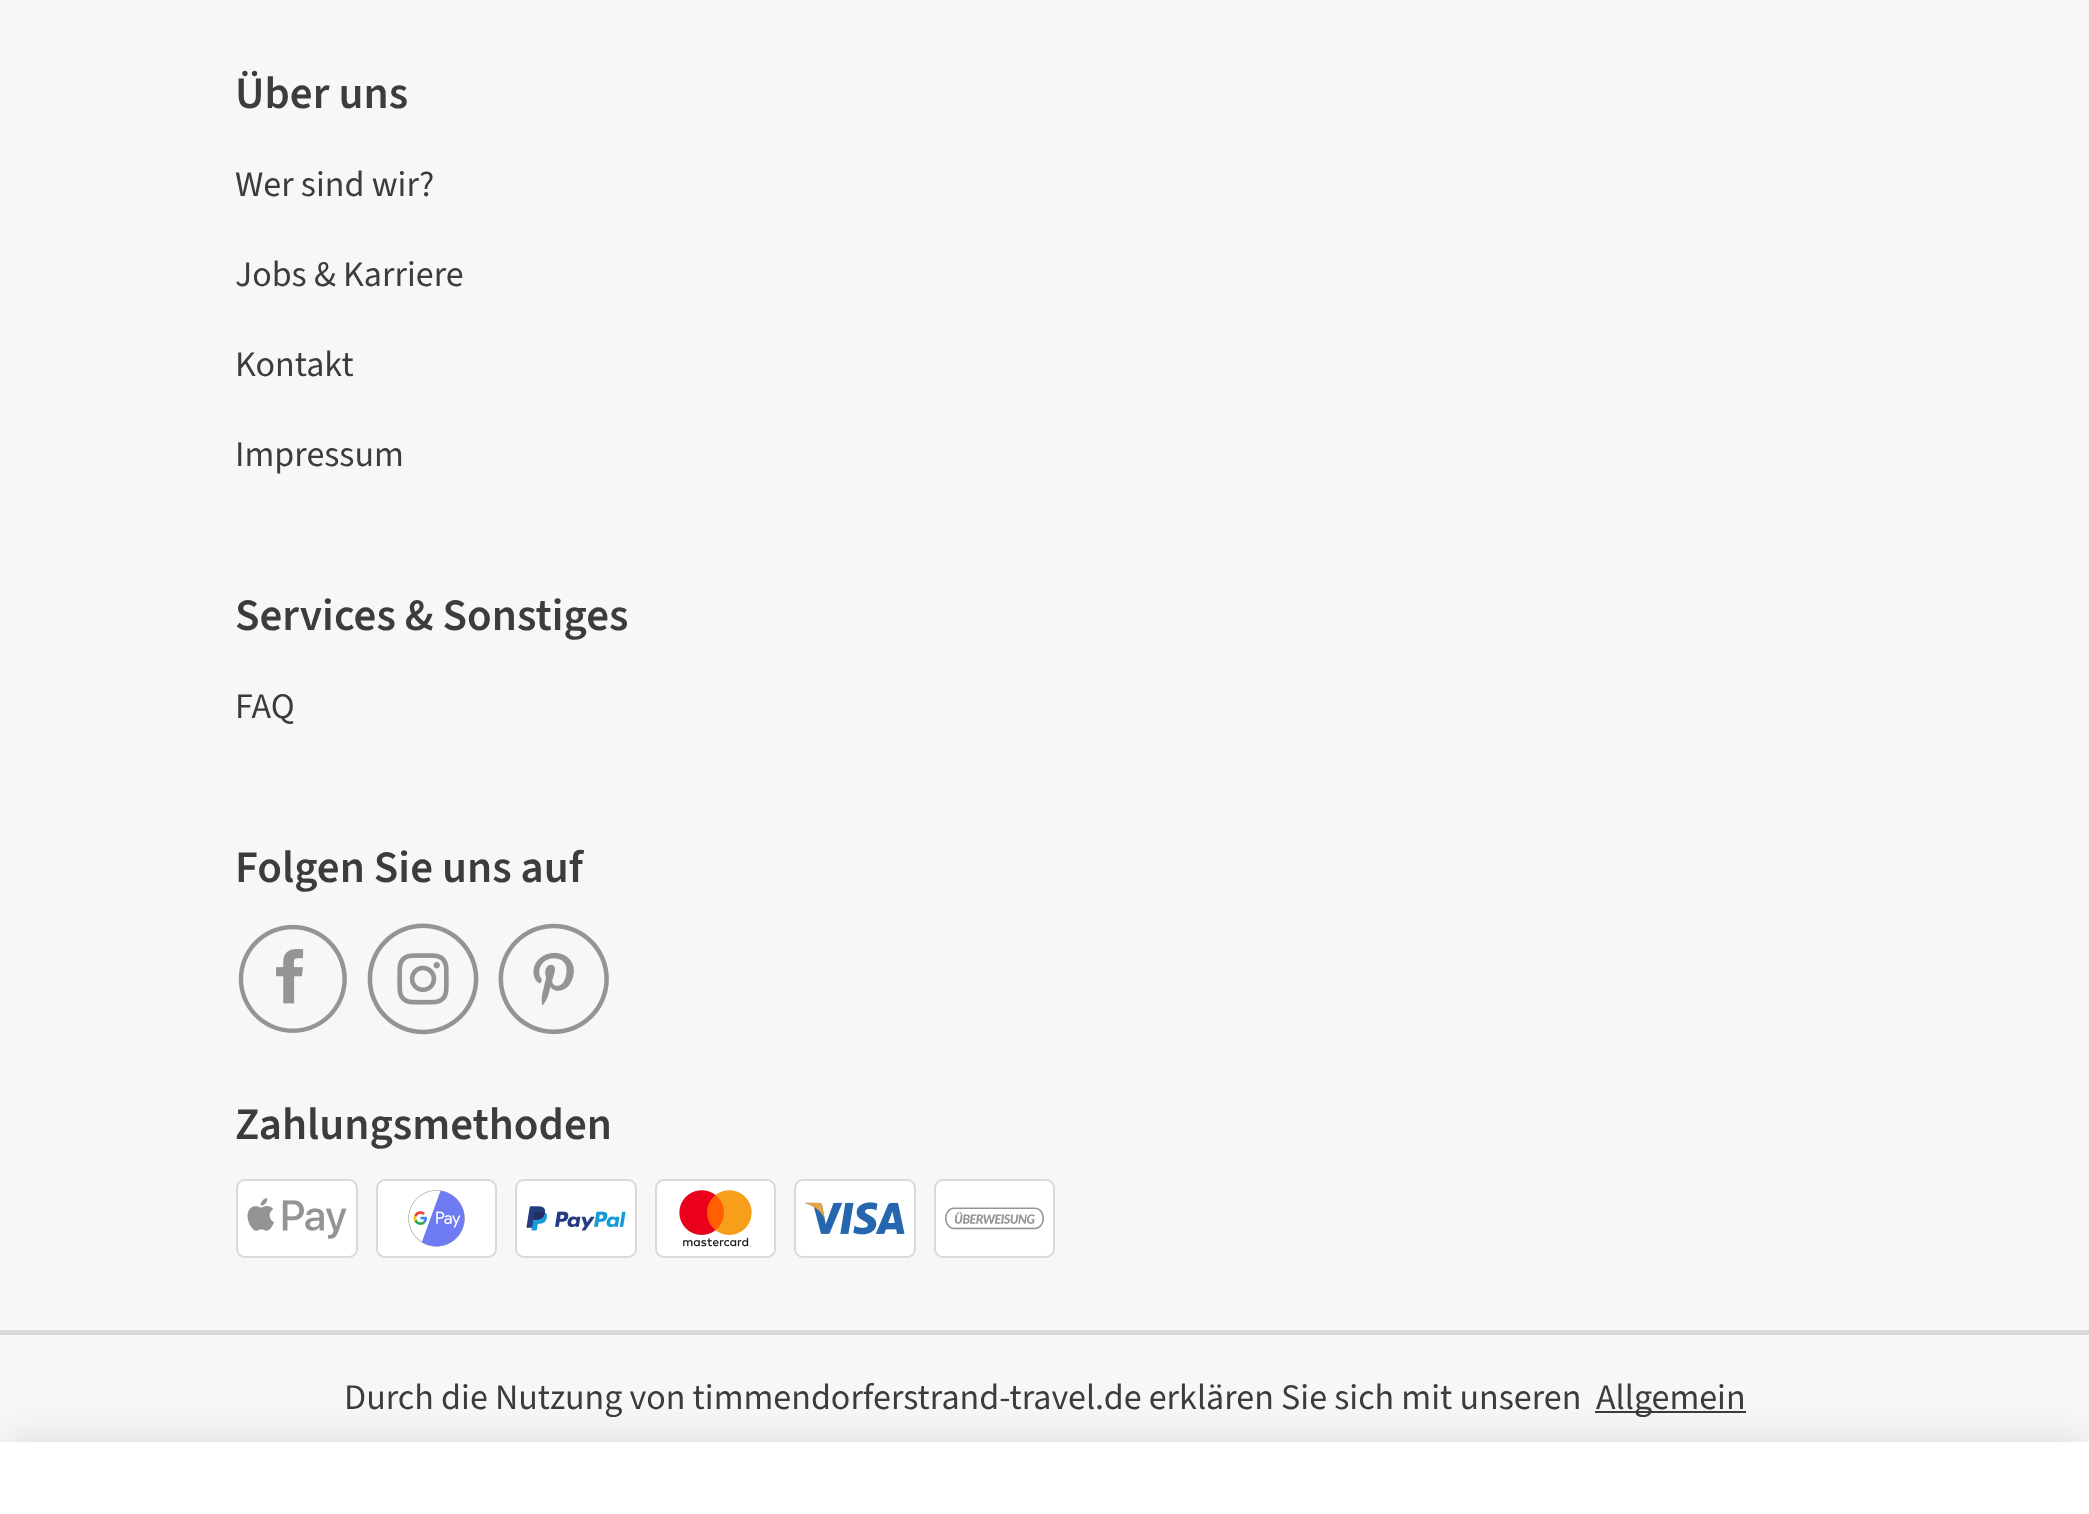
<svg xmlns="http://www.w3.org/2000/svg" width="2089" height="1514">
	<rect width="100%" height="100%" fill="#F7F7F7" />
	<text x="235" y="108" font-family="'Source Sans 3'" font-size="45" font-weight="200" fill="#3C3C3C">Über uns</text>
	<g font-family="'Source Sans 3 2'" font-size="36" font-weight="200" fill="#3C3C3C">
		<text x="235" y="196">Wer sind wir?</text>
		<text x="235" y="286">Jobs &amp; Karriere</text>
		<text x="235" y="376">Kontakt</text>
		<text x="235" y="466">Impressum</text>
	</g>
	<text x="235" y="630" font-family="'Source Sans 3'" font-size="45" font-weight="200" fill="#3C3C3C">Services &amp; Sonstiges</text>
	<text x="235" y="718" font-family="'Source Sans 3 2'" font-size="36" font-weight="200" fill="#3C3C3C">FAQ</text>
	<text x="235" y="882" font-family="'Source Sans 3'" font-size="45" font-weight="200" fill="#3C3C3C">Folgen Sie uns auf</text>
	<image x="238" y="924" width="109" height="109" href="assets/img1.png" />
	<image x="367" y="923" width="112" height="112" href="assets/img2.png" />
	<image x="498" y="923" width="111" height="112" href="assets/img3.png" />
	<text x="235" y="1139" font-family="'Source Sans 3'" font-size="45" font-weight="200" fill="#3C3C3C">Zahlungsmethoden</text>
	<rect x="237" y="1180" width="120" height="77" rx="8" fill="#FFFFFF" stroke="#D9D9D9" stroke-width="2" />
	<image x="247" y="1198" width="100" height="41" href="assets/img4.png" />
	<rect x="377" y="1180" width="119" height="77" rx="8" fill="#FFFFFF" stroke="#D9D9D9" stroke-width="2" />
	<image x="408" y="1190" width="57" height="57" href="assets/img5.png" />
	<rect x="516" y="1180" width="120" height="77" rx="8" fill="#FFFFFF" stroke="#D9D9D9" stroke-width="2" />
	<image x="526" y="1206" width="100" height="25" href="assets/img6.png" />
	<rect x="656" y="1180" width="119" height="77" rx="8" fill="#FFFFFF" stroke="#D9D9D9" stroke-width="2" />
	<image x="679" y="1190" width="73" height="57" href="assets/img7.png" />
	<rect x="795" y="1180" width="120" height="77" rx="8" fill="#FFFFFF" stroke="#D9D9D9" stroke-width="2" />
	<image x="805" y="1202" width="100" height="33" href="assets/img8.png" />
	<rect x="935" y="1180" width="119" height="77" rx="8" fill="#FFFFFF" stroke="#D9D9D9" stroke-width="2" />
	<image x="945" y="1207" width="99" height="23" href="assets/img9.png" />
	<rect x="0" y="1330" width="2089" height="5" fill="#D9D9D9" />
	<text x="344" y="1409" font-family="'Source Sans 3 2'" font-size="36" font-weight="200" fill="#3C3C3C">Durch die Nutzung von timmendorferstrand-travel.de erklären Sie sich mit unseren</text>
	<rect x="1595" y="1411" width="151" height="2" fill="#3C3C3C" />
	<text x="1596" y="1409" font-family="'Source Sans 3 2'" font-size="36" font-weight="200" fill="#3C3C3C">Allgemein</text>
	<rect x="7" y="1438" width="2077" height="58" fill="#000000" fill-opacity="0.1" filter="blur(17px)" />
	<rect x="0" y="1442" width="2089" height="72" fill="#FFFFFF" />
</svg>
